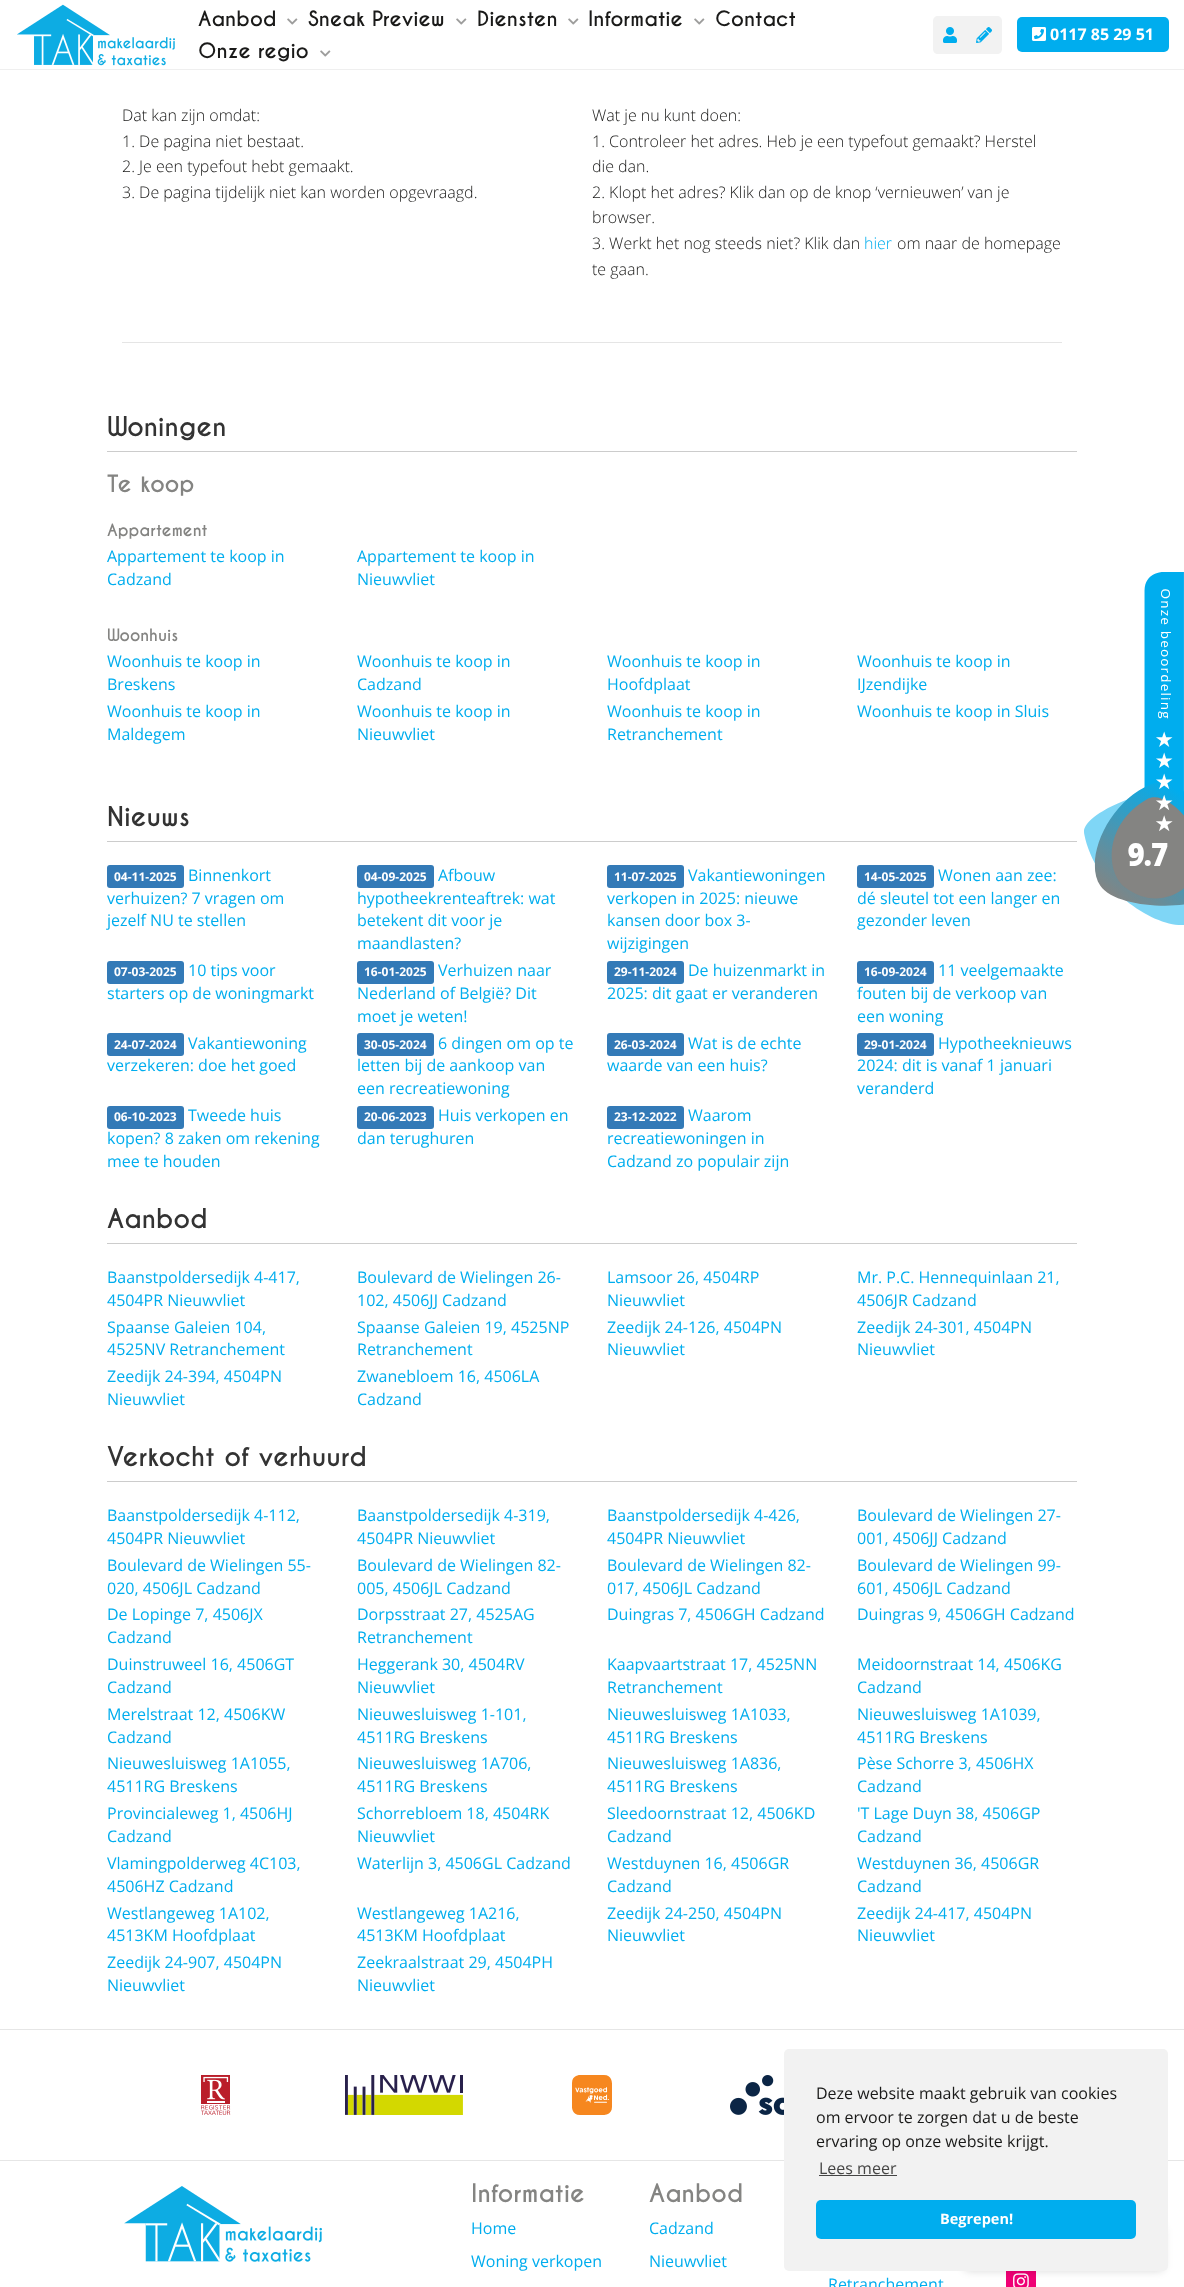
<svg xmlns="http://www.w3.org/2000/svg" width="1184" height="2287">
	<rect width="100%" height="100%" fill="#FFFFFF" />
	<rect x="0" y="69" width="1184" height="1" fill="#EFEFEF" />
	<image x="17" y="4" width="158" height="62" href="assets/img1.png" />
	<text x="198" y="26" font-family="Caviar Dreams" font-size="20" font-weight="700" fill="#1A1A19">Aanbod</text>
	<image x="287" y="18" width="11" height="7" href="assets/img2.png" />
	<text x="308" y="26" font-family="Caviar Dreams" font-size="20" font-weight="700" fill="#1A1A19">Sneak Preview</text>
	<image x="456" y="18" width="11" height="7" href="assets/img2.png" />
	<text x="477" y="26" font-family="Caviar Dreams" font-size="20" font-weight="700" fill="#1A1A19">Diensten</text>
	<image x="568" y="18" width="11" height="7" href="assets/img2.png" />
	<text x="588" y="26" font-family="Caviar Dreams" font-size="20" font-weight="700" fill="#1A1A19">Informatie</text>
	<image x="694" y="18" width="11" height="7" href="assets/img2.png" />
	<g font-family="Caviar Dreams" font-size="20" font-weight="700" fill="#1A1A19">
		<text x="715" y="26">Contact</text>
		<text x="198" y="58">Onze regio</text>
	</g>
	<image x="320" y="50" width="11" height="7" href="assets/img2.png" />
	<path d="M938 16H967V54H938C935 54 933 52 933 49V21C933 18 935 16 938 16Z" fill="#F2F2F2" />
	<image x="943" y="27" width="14" height="16" href="assets/img3.png" />
	<path d="M966 16H997C1000 16 1002 18 1002 21V49C1002 52 1000 54 997 54H966Z" fill="#F2F2F2" />
	<image x="976" y="27" width="16" height="16" href="assets/img4.png" />
	<rect x="1017" y="17" width="152" height="35" rx="5" fill="#00ADEE" />
	<image x="1032" y="27" width="14" height="14" href="assets/img5.png" />
	<text x="1050" y="40" font-family="Open Sans" font-size="16" font-weight="700" fill="#FFFFFF">0117 85 29 51</text>
	<rect x="122" y="342" width="940" height="1" fill="#E5E5E5" />
	<g font-family="Open Sans" font-size="16" font-weight="300" fill="#1A1A19">
		<text x="122" y="121">Dat kan zijn omdat:</text>
		<text x="122" y="147">1. De pagina niet bestaat.</text>
		<text x="122" y="172">2. Je een typefout hebt gemaakt.</text>
		<text x="122" y="198">3. De pagina tijdelijk niet kan worden opgevraagd.</text>
		<text x="592" y="121">Wat je nu kunt doen:</text>
		<text x="592" y="147">1. Controleer het adres. Heb je een typefout gemaakt? Herstel</text>
		<text x="592" y="172">die dan.</text>
		<text x="592" y="198">2. Klopt het adres? Klik dan op de knop ‘vernieuwen’ van je</text>
		<text x="592" y="223">browser.</text>
		<text x="592" y="249">3. Werkt het nog steeds niet? Klik dan</text>
	</g>
	<text x="864" y="249" font-family="Open Sans" font-size="16" font-weight="300" fill="#00ADEE">hier</text>
	<g font-family="Open Sans" font-size="16" font-weight="300" fill="#1A1A19">
		<text x="897" y="249">om naar de homepage</text>
		<text x="592" y="275">te gaan.</text>
	</g>
	<rect x="107" y="451" width="970" height="1" fill="#CCCCCC" />
	<text x="107" y="436" font-family="Caviar Dreams" font-size="25.6" font-weight="700" fill="#333333">Woningen</text>
	<text x="107" y="492" word-spacing="1" font-family="Caviar Dreams" font-size="22.5" font-weight="700" fill="#848482">Te koop</text>
	<text x="107" y="536" font-family="Caviar Dreams" font-size="16" font-weight="700" fill="#848482">Appartement</text>
	<g font-family="Open Sans" font-size="16" fill="#00ADEE">
		<text x="107" y="562">Appartement te koop in</text>
		<text x="107" y="585">Cadzand</text>
		<text x="357" y="562">Appartement te koop in</text>
		<text x="357" y="585">Nieuwvliet</text>
	</g>
	<text x="107" y="641" font-family="Caviar Dreams" font-size="16" font-weight="700" fill="#848482">Woonhuis</text>
	<g font-family="Open Sans" font-size="16" fill="#00ADEE">
		<text x="107" y="667">Woonhuis te koop in</text>
		<text x="107" y="690">Breskens</text>
		<text x="357" y="667">Woonhuis te koop in</text>
		<text x="357" y="690">Cadzand</text>
		<text x="607" y="667">Woonhuis te koop in</text>
		<text x="607" y="690">Hoofdplaat</text>
		<text x="857" y="667">Woonhuis te koop in</text>
		<text x="857" y="690">IJzendijke</text>
		<text x="107" y="717">Woonhuis te koop in</text>
		<text x="107" y="740">Maldegem</text>
		<text x="357" y="717">Woonhuis te koop in</text>
		<text x="357" y="740">Nieuwvliet</text>
		<text x="607" y="717">Woonhuis te koop in</text>
		<text x="607" y="740">Retranchement</text>
		<text x="857" y="717">Woonhuis te koop in Sluis</text>
	</g>
	<rect x="107" y="841" width="970" height="1" fill="#CCCCCC" />
	<text x="107" y="826" font-family="Caviar Dreams" font-size="25.6" font-weight="700" fill="#333333">Nieuws</text>
	<rect x="107" y="865" width="77" height="23" rx="3" fill="#337AB7" />
	<text x="114" y="881" font-family="Open Sans" font-size="12" font-weight="700" fill="#FFFFFF">04-11-2025</text>
	<g font-family="Open Sans" font-size="16" fill="#00ADEE">
		<text x="188" y="881">Binnenkort</text>
		<text x="107" y="904">verhuizen? 7 vragen om</text>
		<text x="107" y="926">jezelf NU te stellen</text>
	</g>
	<rect x="357" y="865" width="77" height="23" rx="3" fill="#337AB7" />
	<text x="364" y="881" font-family="Open Sans" font-size="12" font-weight="700" fill="#FFFFFF">04-09-2025</text>
	<g font-family="Open Sans" font-size="16" fill="#00ADEE">
		<text x="438" y="881">Afbouw</text>
		<text x="357" y="904">hypotheekrenteaftrek: wat</text>
		<text x="357" y="926">betekent dit voor je</text>
		<text x="357" y="949">maandlasten?</text>
	</g>
	<rect x="607" y="865" width="77" height="23" rx="3" fill="#337AB7" />
	<text x="614" y="881" font-family="Open Sans" font-size="12" font-weight="700" fill="#FFFFFF">11-07-2025</text>
	<g font-family="Open Sans" font-size="16" fill="#00ADEE">
		<text x="688" y="881">Vakantiewoningen</text>
		<text x="607" y="904">verkopen in 2025: nieuwe</text>
		<text x="607" y="926">kansen door box 3-</text>
		<text x="607" y="949">wijzigingen</text>
	</g>
	<rect x="857" y="865" width="77" height="23" rx="3" fill="#337AB7" />
	<text x="864" y="881" font-family="Open Sans" font-size="12" font-weight="700" fill="#FFFFFF">14-05-2025</text>
	<g font-family="Open Sans" font-size="16" fill="#00ADEE">
		<text x="938" y="881">Wonen aan zee:</text>
		<text x="857" y="904">dé sleutel tot een langer en</text>
		<text x="857" y="926">gezonder leven</text>
	</g>
	<rect x="107" y="961" width="77" height="23" rx="3" fill="#337AB7" />
	<text x="114" y="976" font-family="Open Sans" font-size="12" font-weight="700" fill="#FFFFFF">07-03-2025</text>
	<g font-family="Open Sans" font-size="16" fill="#00ADEE">
		<text x="188" y="976">10 tips voor</text>
		<text x="107" y="999">starters op de woningmarkt</text>
	</g>
	<rect x="357" y="961" width="77" height="23" rx="3" fill="#337AB7" />
	<text x="364" y="976" font-family="Open Sans" font-size="12" font-weight="700" fill="#FFFFFF">16-01-2025</text>
	<g font-family="Open Sans" font-size="16" fill="#00ADEE">
		<text x="438" y="976">Verhuizen naar</text>
		<text x="357" y="999">Nederland of België? Dit</text>
		<text x="357" y="1022">moet je weten!</text>
	</g>
	<rect x="607" y="961" width="77" height="23" rx="3" fill="#337AB7" />
	<text x="614" y="976" font-family="Open Sans" font-size="12" font-weight="700" fill="#FFFFFF">29-11-2024</text>
	<g font-family="Open Sans" font-size="16" fill="#00ADEE">
		<text x="688" y="976">De huizenmarkt in</text>
		<text x="607" y="999">2025: dit gaat er veranderen</text>
	</g>
	<rect x="857" y="961" width="77" height="23" rx="3" fill="#337AB7" />
	<text x="864" y="976" font-family="Open Sans" font-size="12" font-weight="700" fill="#FFFFFF">16-09-2024</text>
	<g font-family="Open Sans" font-size="16" fill="#00ADEE">
		<text x="938" y="976">11 veelgemaakte</text>
		<text x="857" y="999">fouten bij de verkoop van</text>
		<text x="857" y="1022">een woning</text>
	</g>
	<rect x="107" y="1033" width="77" height="23" rx="3" fill="#337AB7" />
	<text x="114" y="1049" font-family="Open Sans" font-size="12" font-weight="700" fill="#FFFFFF">24-07-2024</text>
	<g font-family="Open Sans" font-size="16" fill="#00ADEE">
		<text x="188" y="1049">Vakantiewoning</text>
		<text x="107" y="1071">verzekeren: doe het goed</text>
	</g>
	<rect x="357" y="1033" width="77" height="23" rx="3" fill="#337AB7" />
	<text x="364" y="1049" font-family="Open Sans" font-size="12" font-weight="700" fill="#FFFFFF">30-05-2024</text>
	<g font-family="Open Sans" font-size="16" fill="#00ADEE">
		<text x="438" y="1049">6 dingen om op te</text>
		<text x="357" y="1071">letten bij de aankoop van</text>
		<text x="357" y="1094">een recreatiewoning</text>
	</g>
	<rect x="607" y="1033" width="77" height="23" rx="3" fill="#337AB7" />
	<text x="614" y="1049" font-family="Open Sans" font-size="12" font-weight="700" fill="#FFFFFF">26-03-2024</text>
	<g font-family="Open Sans" font-size="16" fill="#00ADEE">
		<text x="688" y="1049">Wat is de echte</text>
		<text x="607" y="1071">waarde van een huis?</text>
	</g>
	<rect x="857" y="1033" width="77" height="23" rx="3" fill="#337AB7" />
	<text x="864" y="1049" font-family="Open Sans" font-size="12" font-weight="700" fill="#FFFFFF">29-01-2024</text>
	<g font-family="Open Sans" font-size="16" fill="#00ADEE">
		<text x="938" y="1049">Hypotheeknieuws</text>
		<text x="857" y="1071">2024: dit is vanaf 1 januari</text>
		<text x="857" y="1094">veranderd</text>
	</g>
	<rect x="107" y="1106" width="77" height="23" rx="3" fill="#337AB7" />
	<text x="114" y="1121" font-family="Open Sans" font-size="12" font-weight="700" fill="#FFFFFF">06-10-2023</text>
	<g font-family="Open Sans" font-size="16" fill="#00ADEE">
		<text x="188" y="1121">Tweede huis</text>
		<text x="107" y="1144">kopen? 8 zaken om rekening</text>
		<text x="107" y="1167">mee te houden</text>
	</g>
	<rect x="357" y="1106" width="77" height="23" rx="3" fill="#337AB7" />
	<text x="364" y="1121" font-family="Open Sans" font-size="12" font-weight="700" fill="#FFFFFF">20-06-2023</text>
	<g font-family="Open Sans" font-size="16" fill="#00ADEE">
		<text x="438" y="1121">Huis verkopen en</text>
		<text x="357" y="1144">dan terughuren</text>
	</g>
	<rect x="607" y="1106" width="77" height="23" rx="3" fill="#337AB7" />
	<text x="614" y="1121" font-family="Open Sans" font-size="12" font-weight="700" fill="#FFFFFF">23-12-2022</text>
	<g font-family="Open Sans" font-size="16" fill="#00ADEE">
		<text x="688" y="1121">Waarom</text>
		<text x="607" y="1144">recreatiewoningen in</text>
		<text x="607" y="1167">Cadzand zo populair zijn</text>
	</g>
	<rect x="107" y="1243" width="970" height="1" fill="#CCCCCC" />
	<text x="107" y="1228" font-family="Caviar Dreams" font-size="25.6" font-weight="700" fill="#333333">Aanbod</text>
	<g font-family="Open Sans" font-size="16" fill="#00ADEE">
		<text x="107" y="1283">Baanstpoldersedijk 4-417,</text>
		<text x="107" y="1306">4504PR Nieuwvliet</text>
		<text x="357" y="1283">Boulevard de Wielingen 26-</text>
		<text x="357" y="1306">102, 4506JJ Cadzand</text>
		<text x="607" y="1283">Lamsoor 26, 4504RP</text>
		<text x="607" y="1306">Nieuwvliet</text>
		<text x="857" y="1283">Mr. P.C. Hennequinlaan 21,</text>
		<text x="857" y="1306">4506JR Cadzand</text>
		<text x="107" y="1333">Spaanse Galeien 104,</text>
		<text x="107" y="1355">4525NV Retranchement</text>
		<text x="357" y="1333">Spaanse Galeien 19, 4525NP</text>
		<text x="357" y="1355">Retranchement</text>
		<text x="607" y="1333">Zeedijk 24-126, 4504PN</text>
		<text x="607" y="1355">Nieuwvliet</text>
		<text x="857" y="1333">Zeedijk 24-301, 4504PN</text>
		<text x="857" y="1355">Nieuwvliet</text>
		<text x="107" y="1382">Zeedijk 24-394, 4504PN</text>
		<text x="107" y="1405">Nieuwvliet</text>
		<text x="357" y="1382">Zwanebloem 16, 4506LA</text>
		<text x="357" y="1405">Cadzand</text>
	</g>
	<rect x="107" y="1481" width="970" height="1" fill="#CCCCCC" />
	<text x="107" y="1466" word-spacing="1" font-family="Caviar Dreams" font-size="25.6" font-weight="700" fill="#333333">Verkocht of verhuurd</text>
	<g font-family="Open Sans" font-size="16" fill="#00ADEE">
		<text x="107" y="1521">Baanstpoldersedijk 4-112,</text>
		<text x="107" y="1544">4504PR Nieuwvliet</text>
		<text x="357" y="1521">Baanstpoldersedijk 4-319,</text>
		<text x="357" y="1544">4504PR Nieuwvliet</text>
		<text x="607" y="1521">Baanstpoldersedijk 4-426,</text>
		<text x="607" y="1544">4504PR Nieuwvliet</text>
		<text x="857" y="1521">Boulevard de Wielingen 27-</text>
		<text x="857" y="1544">001, 4506JJ Cadzand</text>
		<text x="107" y="1571">Boulevard de Wielingen 55-</text>
		<text x="107" y="1594">020, 4506JL Cadzand</text>
		<text x="357" y="1571">Boulevard de Wielingen 82-</text>
		<text x="357" y="1594">005, 4506JL Cadzand</text>
		<text x="607" y="1571">Boulevard de Wielingen 82-</text>
		<text x="607" y="1594">017, 4506JL Cadzand</text>
		<text x="857" y="1571">Boulevard de Wielingen 99-</text>
		<text x="857" y="1594">601, 4506JL Cadzand</text>
		<text x="107" y="1620">De Lopinge 7, 4506JX</text>
		<text x="107" y="1643">Cadzand</text>
		<text x="357" y="1620">Dorpsstraat 27, 4525AG</text>
		<text x="357" y="1643">Retranchement</text>
		<text x="607" y="1620">Duingras 7, 4506GH Cadzand</text>
		<text x="857" y="1620">Duingras 9, 4506GH Cadzand</text>
		<text x="107" y="1670">Duinstruweel 16, 4506GT</text>
		<text x="107" y="1693">Cadzand</text>
		<text x="357" y="1670">Heggerank 30, 4504RV</text>
		<text x="357" y="1693">Nieuwvliet</text>
		<text x="607" y="1670">Kaapvaartstraat 17, 4525NN</text>
		<text x="607" y="1693">Retranchement</text>
		<text x="857" y="1670">Meidoornstraat 14, 4506KG</text>
		<text x="857" y="1693">Cadzand</text>
		<text x="107" y="1720">Merelstraat 12, 4506KW</text>
		<text x="107" y="1743">Cadzand</text>
		<text x="357" y="1720">Nieuwesluisweg 1-101,</text>
		<text x="357" y="1743">4511RG Breskens</text>
		<text x="607" y="1720">Nieuwesluisweg 1A1033,</text>
		<text x="607" y="1743">4511RG Breskens</text>
		<text x="857" y="1720">Nieuwesluisweg 1A1039,</text>
		<text x="857" y="1743">4511RG Breskens</text>
		<text x="107" y="1769">Nieuwesluisweg 1A1055,</text>
		<text x="107" y="1792">4511RG Breskens</text>
		<text x="357" y="1769">Nieuwesluisweg 1A706,</text>
		<text x="357" y="1792">4511RG Breskens</text>
		<text x="607" y="1769">Nieuwesluisweg 1A836,</text>
		<text x="607" y="1792">4511RG Breskens</text>
		<text x="857" y="1769">Pèse Schorre 3, 4506HX</text>
		<text x="857" y="1792">Cadzand</text>
		<text x="107" y="1819">Provincialeweg 1, 4506HJ</text>
		<text x="107" y="1842">Cadzand</text>
		<text x="357" y="1819">Schorrebloem 18, 4504RK</text>
		<text x="357" y="1842">Nieuwvliet</text>
		<text x="607" y="1819">Sleedoornstraat 12, 4506KD</text>
		<text x="607" y="1842">Cadzand</text>
		<text x="857" y="1819">'T Lage Duyn 38, 4506GP</text>
		<text x="857" y="1842">Cadzand</text>
		<text x="107" y="1869">Vlamingpolderweg 4C103,</text>
		<text x="107" y="1892">4506HZ Cadzand</text>
		<text x="357" y="1869">Waterlijn 3, 4506GL Cadzand</text>
		<text x="607" y="1869">Westduynen 16, 4506GR</text>
		<text x="607" y="1892">Cadzand</text>
		<text x="857" y="1869">Westduynen 36, 4506GR</text>
		<text x="857" y="1892">Cadzand</text>
		<text x="107" y="1919">Westlangeweg 1A102,</text>
		<text x="107" y="1941">4513KM Hoofdplaat</text>
		<text x="357" y="1919">Westlangeweg 1A216,</text>
		<text x="357" y="1941">4513KM Hoofdplaat</text>
		<text x="607" y="1919">Zeedijk 24-250, 4504PN</text>
		<text x="607" y="1941">Nieuwvliet</text>
		<text x="857" y="1919">Zeedijk 24-417, 4504PN</text>
		<text x="857" y="1941">Nieuwvliet</text>
		<text x="107" y="1968">Zeedijk 24-907, 4504PN</text>
		<text x="107" y="1991">Nieuwvliet</text>
		<text x="357" y="1968">Zeekraalstraat 29, 4504PH</text>
		<text x="357" y="1991">Nieuwvliet</text>
	</g>
	<rect x="0" y="2029" width="1184" height="1" fill="#E6E6E6" />
	<rect x="0" y="2160" width="1184" height="1" fill="#E6E6E6" />
	<image x="201" y="2075" width="30" height="40" href="assets/img6.png" />
	<image x="345" y="2075" width="118" height="40" href="assets/img7.png" />
	<image x="572" y="2075" width="40" height="40" href="assets/img8.png" />
	<image x="730" y="2075" width="54" height="40" href="assets/img9.png" />
	<image x="124" y="2186" width="198" height="76" href="assets/img10.png" />
	<text x="471" y="2202" font-family="Caviar Dreams" font-size="24" font-weight="700" fill="#848482">Informatie</text>
	<g font-family="Open Sans" font-size="16" fill="#00ADEE">
		<text x="471" y="2234">Home</text>
		<text x="471" y="2267">Woning verkopen</text>
	</g>
	<text x="649" y="2202" font-family="Caviar Dreams" font-size="24" font-weight="700" fill="#848482">Aanbod</text>
	<g font-family="Open Sans" font-size="16" fill="#00ADEE">
		<text x="649" y="2234">Cadzand</text>
		<text x="649" y="2267">Nieuwvliet</text>
		<text x="828" y="2290">Retranchement</text>
	</g>
	<rect x="1006" y="2271" width="30" height="16" fill="#F00075" />
	<image x="1013" y="2273" width="16" height="14" href="assets/img11.png" />
	<image x="1084" y="572" width="100" height="353" href="assets/img12.png" />
	<rect x="964" y="2226" width="200" height="45" rx="5" fill="#000000" fill-opacity="0.15" filter="blur(4px)" />
	<rect x="784" y="2049" width="384" height="222" rx="5" fill="#F2F2F2" />
	<g font-family="Open Sans" font-size="16" fill="#1A1A19">
		<text x="816" y="2099">Deze website maakt gebruik van cookies</text>
		<text x="816" y="2123">om ervoor te zorgen dat u de beste</text>
		<text x="816" y="2147">ervaring op onze website krijgt.</text>
	</g>
	<text x="819" y="2174" font-family="Open Sans" font-size="16" fill="#454544">Lees meer</text>
	<rect x="819" y="2175" width="78" height="1" fill="#454544" />
	<rect x="816" y="2200" width="320" height="39" rx="5" fill="#00ADEE" />
	<text x="940" y="2224" font-family="Open Sans" font-size="14.5" font-weight="700" fill="#FFFFFF">Begrepen!</text>
</svg>
